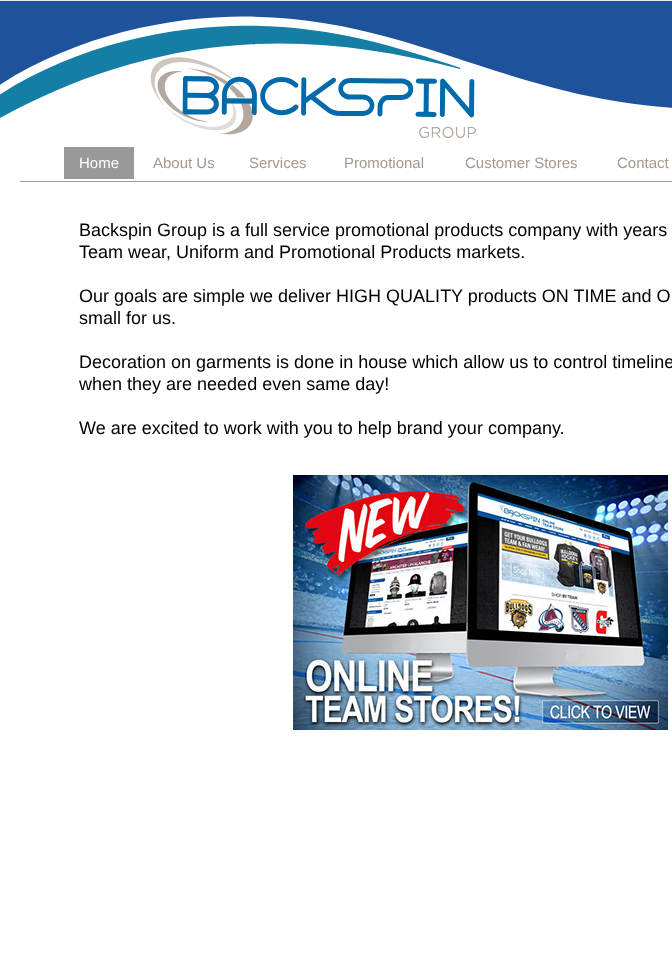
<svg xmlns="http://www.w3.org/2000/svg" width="672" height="965">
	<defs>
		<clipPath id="clip1"><rect x="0" y="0" width="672" height="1" /></clipPath>
	</defs>
	<rect width="100%" height="100%" fill="#FFFFFF" />
	<g clip-path="url(#clip1)">
		<rect x="-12" y="5" width="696" height="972" fill="#7F7F7F" fill-opacity="0.5" filter="blur(4px)" />
		<rect x="-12" y="5" width="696" height="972" fill="#7F7F7F" fill-opacity="0.5" filter="blur(4px)" />
	</g>
	<image x="0" y="1" width="672" height="137" href="assets/img1.png" />
	<rect x="64" y="147" width="70" height="32" fill="#999999" />
	<text x="79" y="168" font-family="Liberation Sans" font-size="15" fill="#FFFFFF">Home</text>
	<g font-family="Liberation Sans" font-size="15" fill="#A4988F">
		<text x="153" y="168">About Us</text>
		<text x="249" y="168">Services</text>
		<text x="344" y="168">Promotional</text>
		<text x="465" y="168">Customer Stores</text>
		<text x="617" y="168">Contact</text>
	</g>
	<rect x="20" y="181" width="652" height="1" fill="#A4988F" />
	<g font-family="Liberation Sans" font-size="18" fill="#000000">
		<text x="79" y="236">Backspin Group is a full service promotional products company with years</text>
		<text x="79" y="258">Team wear, Uniform and Promotional Products markets.</text>
		<text x="79" y="302">Our goals are simple we deliver HIGH QUALITY products ON TIME and O</text>
		<text x="79" y="324">small for us.</text>
		<text x="79" y="368">Decoration on garments is done in house which allow us to control timeline</text>
		<text x="79" y="390">when they are needed even same day!</text>
		<text x="79" y="434">We are excited to work with you to help brand your company.</text>
	</g>
	<image x="293" y="475" width="375" height="255" href="assets/img2.png" />
</svg>
